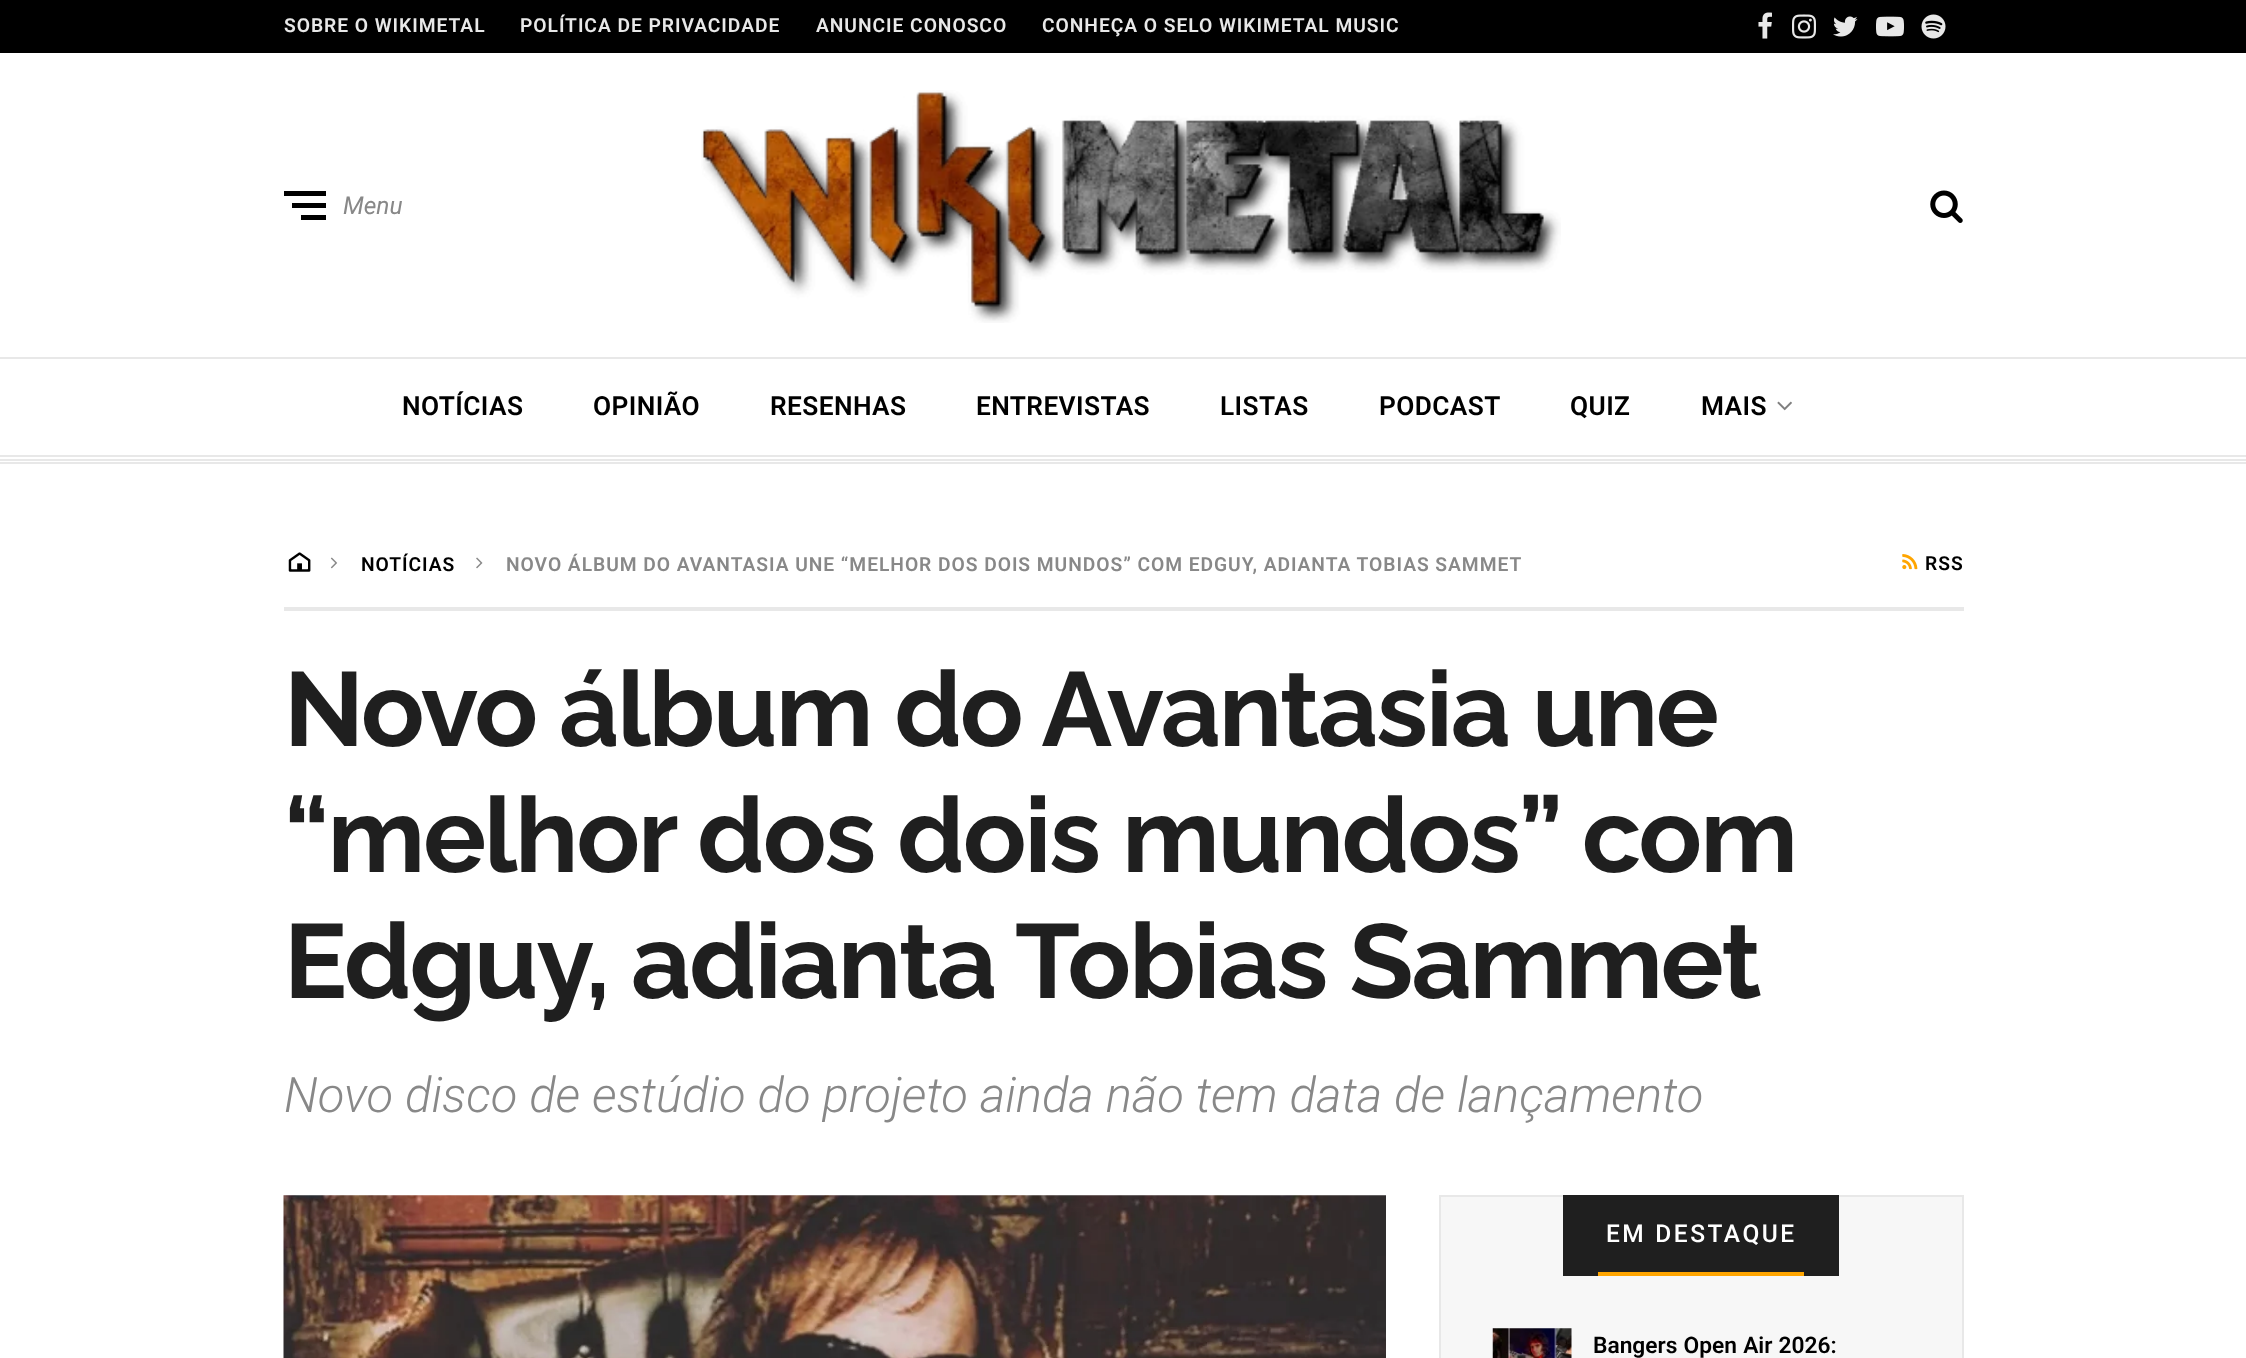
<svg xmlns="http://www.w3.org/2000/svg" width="2246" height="1358">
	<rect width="100%" height="100%" fill="#FFFFFF" />
	<rect x="0" y="0" width="2246" height="53" fill="#000000" />
	<g font-family="Roboto" font-size="19.25" font-weight="600" letter-spacing="0.95" fill="#E8E8E8">
		<text x="284" y="32">SOBRE O WIKIMETAL</text>
		<text x="520" y="32">POLÍTICA DE PRIVACIDADE</text>
		<text x="816" y="32">ANUNCIE CONOSCO</text>
		<text x="1042" y="32">CONHEÇA O SELO WIKIMETAL MUSIC</text>
	</g>
	<image x="1758" y="12" width="14" height="27" href="assets/img1.png" />
	<image x="1792" y="14" width="24" height="25" href="assets/img2.png" />
	<image x="1833" y="16" width="25" height="21" href="assets/img3.png" />
	<image x="1876" y="16" width="28" height="21" href="assets/img4.png" />
	<image x="1921" y="14" width="25" height="25" href="assets/img5.png" />
	<rect x="0" y="357" width="2246" height="2" fill="#E8E8E8" />
	<rect x="284" y="191" width="42" height="5" fill="#000000" />
	<rect x="292" y="203" width="34" height="5" fill="#000000" />
	<rect x="301" y="215" width="25" height="5" fill="#000000" />
	<text x="343" y="214" font-family="Roboto" font-size="24.5" font-style="italic" fill="#888888">Menu</text>
	<image x="701" y="90" width="860" height="233" href="assets/img6.png" />
	<image x="1930" y="190" width="33" height="33" href="assets/img7.png" />
	<rect x="0" y="455" width="2246" height="2" fill="#E8E8E8" />
	<g font-family="Roboto" font-size="26.25" font-weight="600" letter-spacing="0.4" fill="#000000">
		<text x="402" y="415">NOTÍCIAS</text>
		<text x="593" y="415">OPINIÃO</text>
		<text x="770" y="415">RESENHAS</text>
		<text x="976" y="415">ENTREVISTAS</text>
		<text x="1220" y="415">LISTAS</text>
		<text x="1379" y="415">PODCAST</text>
		<text x="1570" y="415">QUIZ</text>
		<text x="1701" y="415">MAIS</text>
	</g>
	<image x="1777" y="401" width="15" height="10" href="assets/img8.png" />
	<rect x="0" y="462" width="2246" height="2" fill="#E8E8E8" />
	<rect x="0" y="459" width="2246" height="2" fill="#E8E8E8" />
	<rect x="284" y="607" width="1680" height="4" fill="#E8E8E8" />
	<image x="288" y="552" width="23" height="20" href="assets/img9.png" />
	<image x="330" y="557" width="8" height="12" href="assets/img10.png" />
	<text x="361" y="571" font-family="Roboto" font-size="19.25" font-weight="600" letter-spacing="0.95" fill="#000000">NOTÍCIAS</text>
	<image x="476" y="557" width="7" height="12" href="assets/img11.png" />
	<text x="506" y="571" font-family="Roboto" font-size="19.25" font-weight="600" letter-spacing="0.95" fill="#888888">NOVO ÁLBUM DO AVANTASIA UNE “MELHOR DOS DOIS MUNDOS” COM EDGUY, ADIANTA TOBIAS SAMMET</text>
	<image x="1902" y="554" width="16" height="16" href="assets/img12.png" />
	<text x="1925" y="570" font-family="Roboto" font-size="19.25" font-weight="600" letter-spacing="0.95" fill="#000000">RSS</text>
	<g font-family="Raleway" font-size="105" font-weight="100" letter-spacing="-2.1" fill="#1F1F1F">
		<text x="284" y="746">Novo álbum do Avantasia une</text>
		<text x="284" y="872">“melhor dos dois mundos” com</text>
		<text x="284" y="998">Edguy, adianta Tobias Sammet</text>
	</g>
	<text x="284" y="1112" font-family="Roboto" font-size="49" font-weight="300" font-style="italic" fill="#888888">Novo disco de estúdio do projeto ainda não tem data de lançamento</text>
	<image x="283" y="1195" width="1103" height="163" href="assets/img13.png" />
	<rect x="1440" y="1196" width="523" height="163" fill="#F7F7F7" stroke="#E8E8E8" stroke-width="2" />
	<rect x="1563" y="1195" width="276" height="81" fill="#1F1F1F" />
	<rect x="1598" y="1272" width="206" height="4" fill="#FFA500" />
	<text x="1606" y="1242" word-spacing="0.5" font-family="Roboto" font-size="24.5" font-weight="500" letter-spacing="2.5" fill="#FFFFFF">EM DESTAQUE</text>
	<image x="1492" y="1328" width="80" height="30" href="assets/img14.png" />
	<text x="1593" y="1353" word-spacing="0.5" font-family="Roboto" font-size="22.75" font-weight="600" fill="#000000">Bangers Open Air 2026:</text>
</svg>
